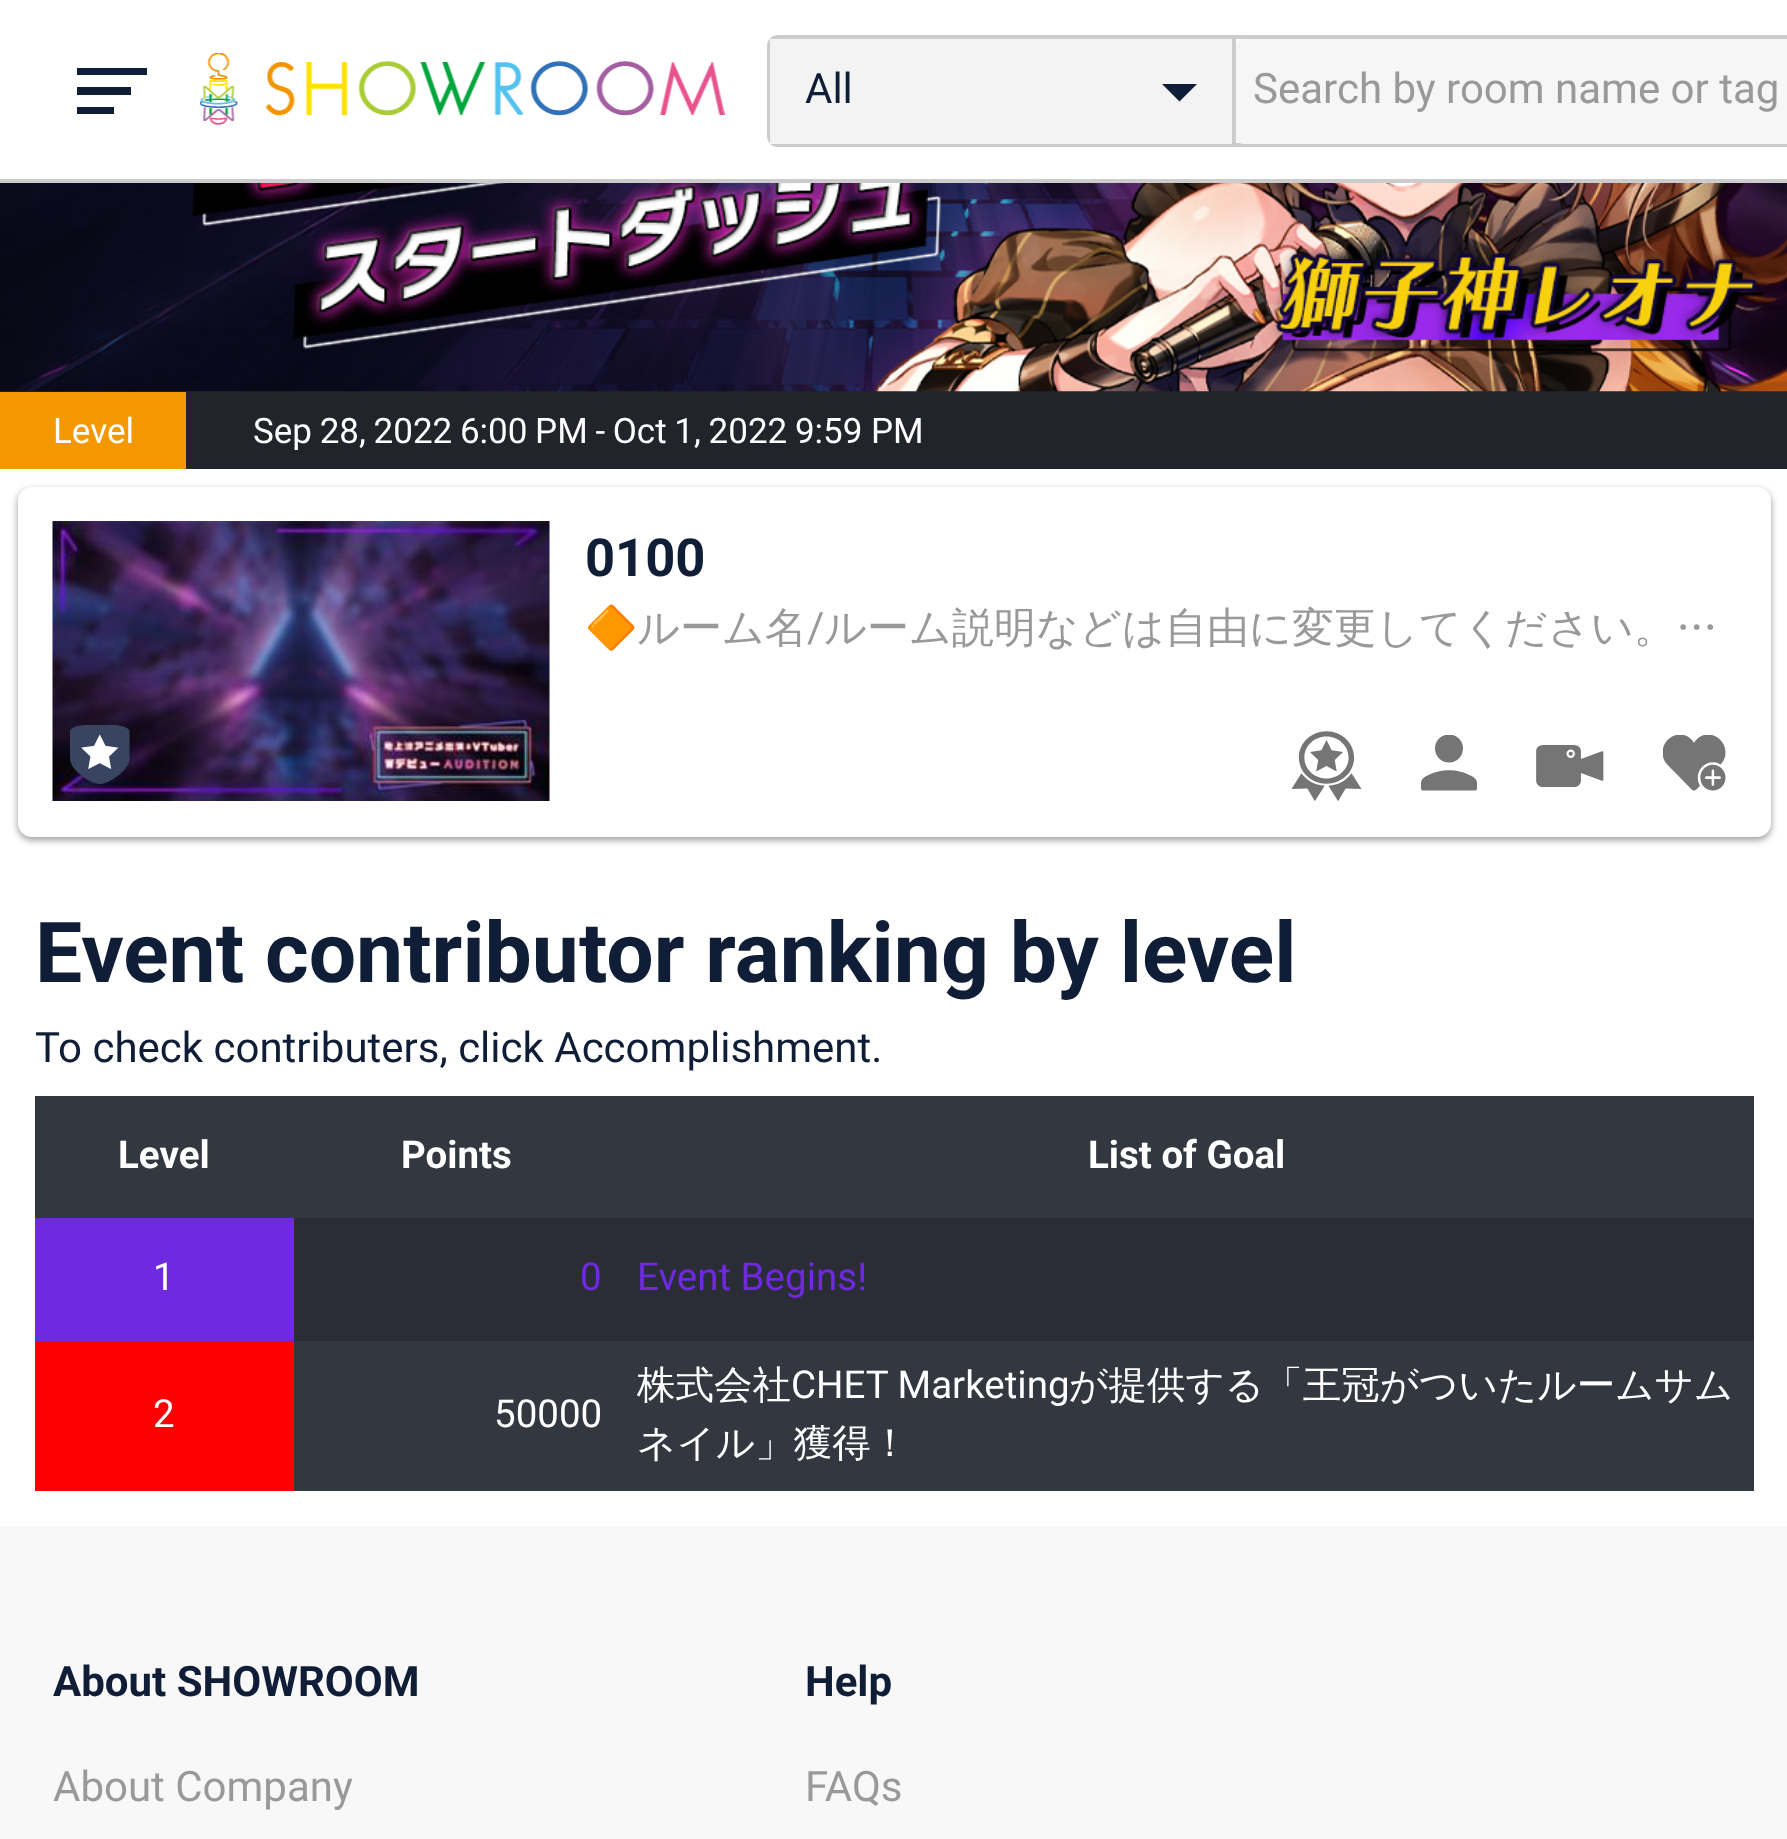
<svg xmlns="http://www.w3.org/2000/svg" width="1787" height="1839">
	<defs>
		<clipPath id="clip1"><rect x="585" y="592" width="1151" height="168" /></clipPath>
	</defs>
	<rect width="100%" height="100%" fill="#FFFFFF" />
	<rect x="0" y="179" width="1787" height="4" fill="#CCCCCC" />
	<path d="M77 68V75H147V68ZM77 87V95H131V87ZM77 114V107H114V114Z" fill="#0F1E36" fill-rule="evenodd" />
	<image x="200" y="53" width="525" height="72" href="assets/img1.png" />
	<rect x="769" y="37" width="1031" height="108" rx="9" fill="none" stroke="#CCCCCC" stroke-width="4" />
	<rect x="770" y="39" width="462" height="105" fill="#F3F3F3" />
	<rect x="1232" y="39" width="4" height="105" fill="#CCCCCC" />
	<text x="805" y="103" font-family="Roboto" font-size="42" fill="#0F1E36">All</text>
	<path d="M1162 84H1197L1179.5 101.5Z" fill="#0F1E36" />
	<rect x="1236" y="39" width="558" height="105" rx="7" fill="#F6F6F6" />
	<text x="1253" y="103" font-family="Roboto" font-size="42" fill="#999999">Search by room name or tag</text>
	<rect x="0" y="391" width="1787" height="78" fill="#21242B" />
	<image x="0" y="183" width="1787" height="209" href="assets/img2.png" />
	<rect x="0" y="392" width="186" height="77" fill="#F39800" />
	<g font-family="Roboto" font-size="35" fill="#FFFFFF">
		<text x="53" y="443">Level</text>
		<text x="253" y="443" word-spacing="-1">Sep 28, 2022 6:00 PM - Oct 1, 2022 9:59</text>
		<text x="871" y="443">PM</text>
	</g>
	<rect x="18" y="490" width="1753" height="350" rx="14" fill="#000000" fill-opacity="0.4" filter="blur(3.5px)" />
	<rect x="18" y="487" width="1753" height="350" rx="14" fill="#FFFFFF" />
	<image x="52" y="521" width="498" height="280" href="assets/img3.png" />
	<image x="70" y="725" width="60" height="59" href="assets/img4.png" />
	<text x="585" y="576" font-family="Roboto" font-size="52.5" font-weight="700" fill="#0F1E36">0100</text>
	<g clip-path="url(#clip1)">
		<text x="585" y="642" font-family="Noto Color Emoji" font-size="42" fill="#999999">🔶</text>
	</g>
	<text x="637" y="642" font-family="WenQuanYi Zen Hei" font-size="42" font-weight="500" fill="#999999">ルーム名</text>
	<text x="807" y="642" font-family="Roboto" font-size="42" fill="#999999">/</text>
	<text x="824" y="642" font-family="WenQuanYi Zen Hei" font-size="42" font-weight="500" fill="#999999">ルーム説明などは自由に変更してください。…</text>
	<image x="1292" y="731" width="70" height="70" href="assets/img5.png" />
	<image x="1421" y="735" width="56" height="56" href="assets/img6.png" />
	<image x="1536" y="745" width="68" height="42" href="assets/img7.png" />
	<image x="1663" y="735" width="63" height="56" href="assets/img8.png" />
	<text x="35" y="982" font-family="Roboto" font-size="84" font-weight="700" fill="#0F1E36">Event contributor ranking by level</text>
	<text x="35" y="1062" font-family="Roboto" font-size="42" fill="#0F1E36">To check contributers, click Accomplishment.</text>
	<rect x="35" y="1096" width="1719" height="122" fill="#33373F" />
	<g font-family="Roboto" font-size="38.5" font-weight="700" fill="#FFFFFF">
		<text x="118" y="1168">Level</text>
		<text x="401" y="1168">Points</text>
		<text x="1088" y="1168">List of Goal</text>
	</g>
	<rect x="294" y="1218" width="1460" height="123" fill="#2A2D35" />
	<rect x="35" y="1218" width="259" height="123" fill="#6E29E1" />
	<text x="153" y="1290" font-family="Roboto" font-size="38.5" fill="#FFFFFF">1</text>
	<g font-family="Roboto" font-size="38.5" fill="#6E29E1">
		<text x="580" y="1290">0</text>
		<text x="637" y="1290">Event Begins!</text>
	</g>
	<rect x="294" y="1341" width="1460" height="150" fill="#33373F" />
	<rect x="35" y="1341" width="259" height="150" fill="#FF0000" />
	<g font-family="Roboto" font-size="38.5" fill="#FFFFFF">
		<text x="153" y="1427">2</text>
		<text x="494" y="1427">50000</text>
	</g>
	<text x="637" y="1398" font-family="WenQuanYi Zen Hei" font-size="38.5" font-weight="500" fill="#FFFFFF">株式会社</text>
	<text x="791" y="1398" font-family="Roboto" font-size="38.5" fill="#FFFFFF">CHET Marketing</text>
	<g font-family="WenQuanYi Zen Hei" font-size="38.5" font-weight="500" fill="#FFFFFF">
		<text x="1069" y="1398">が提供する「王冠がついたルームサム</text>
		<text x="637" y="1456">ネイル」獲得！</text>
	</g>
	<rect x="0" y="1526" width="1787" height="313" fill="#F8F8F8" />
	<text x="53" y="1696" font-family="Roboto" font-size="42" font-weight="700" fill="#0F1E36">About SHOWROOM</text>
	<text x="53" y="1801" font-family="Roboto" font-size="42" fill="#999999">About Company</text>
	<text x="805" y="1696" font-family="Roboto" font-size="42" font-weight="700" fill="#0F1E36">Help</text>
	<text x="805" y="1801" font-family="Roboto" font-size="42" fill="#999999">FAQs</text>
</svg>
